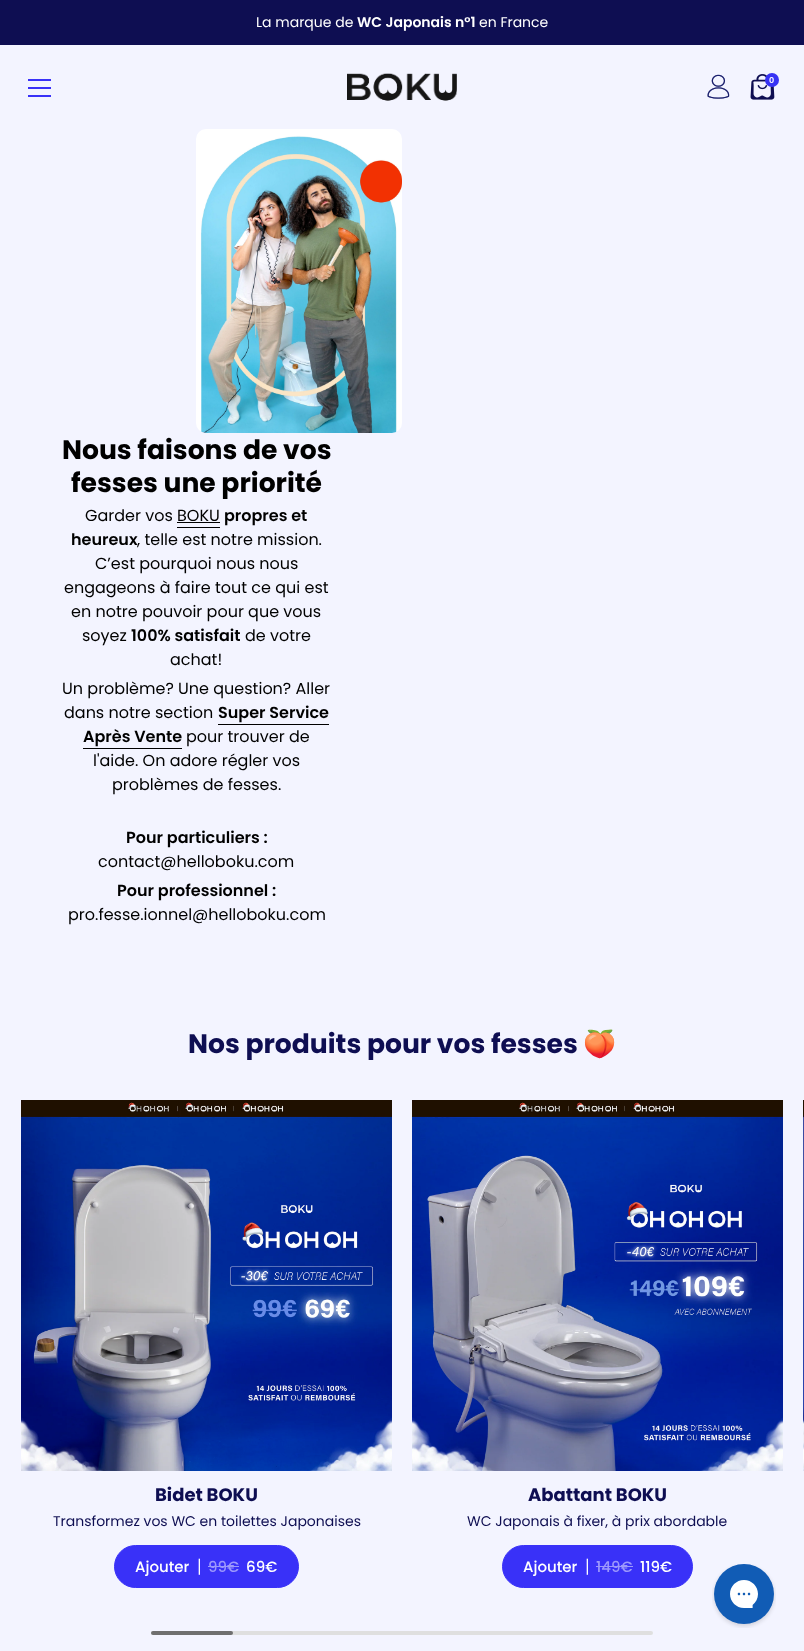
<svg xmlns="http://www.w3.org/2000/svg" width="804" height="1651">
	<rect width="100%" height="100%" fill="#F3F4FF" />
	<rect x="0" y="0" width="804" height="45" fill="#0E0E52" />
	<text x="256" y="27" font-family="Poppins" font-size="14" fill="#FFFFFF">La marque de</text>
	<text x="357" y="27" font-family="Poppins" font-size="14" font-weight="600" fill="#FFFFFF">WC Japonais n°1</text>
	<text x="479" y="27" font-family="Poppins" font-size="14" fill="#FFFFFF">en France</text>
	<rect x="28" y="79" width="23" height="2" fill="#3931F8" />
	<rect x="28" y="87" width="23" height="2" fill="#3931F8" />
	<rect x="28" y="95" width="23" height="2" fill="#3931F8" />
	<image x="347" y="73" width="110" height="28" href="assets/img1.png" />
	<image x="707" y="74" width="23" height="25" href="assets/img2.png" />
	<image x="750" y="74" width="25" height="26" href="assets/img3.png" />
	<circle cx="772" cy="80" r="7" fill="#3732F4" />
	<text x="769" y="83" font-family="Poppins" font-size="8" font-weight="600" fill="#FFFFFF">0</text>
	<image x="196" y="129" width="206" height="304" href="assets/img4.png" />
	<g font-family="Poppins" font-size="26.6" font-weight="700" fill="#000000">
		<text x="62" y="459">Nous faisons de vos</text>
		<text x="71" y="492">fesses une priorité</text>
	</g>
	<text x="85" y="521" font-family="Poppins" font-size="16" fill="#000000">Garder vos BOKU</text>
	<text x="224" y="521" font-family="Poppins" font-size="16" font-weight="600" fill="#000000">propres et</text>
	<rect x="177" y="522" width="43" height="1" fill="#000000" />
	<rect x="177" y="527" width="43" height="1" fill="#000000" />
	<text x="71" y="545" font-family="Poppins" font-size="16" font-weight="600" fill="#000000">heureux</text>
	<g font-family="Poppins" font-size="16" fill="#000000">
		<text x="137" y="545">, telle est notre mission.</text>
		<text x="95" y="569">C’est pourquoi nous nous</text>
		<text x="64" y="593">engageons à faire tout ce qui est</text>
		<text x="71" y="617">en notre pouvoir pour que vous</text>
		<text x="82" y="641">soyez</text>
	</g>
	<text x="131" y="641" font-family="Poppins" font-size="16" font-weight="600" fill="#000000">100% satisfait</text>
	<g font-family="Poppins" font-size="16" fill="#000000">
		<text x="245" y="641">de votre</text>
		<text x="170" y="665">achat!</text>
		<text x="62" y="694">Un problème? Une question? Aller</text>
		<text x="64" y="718">dans notre section</text>
	</g>
	<text x="218" y="718" font-family="Poppins" font-size="16" font-weight="600" fill="#000000">Super Service</text>
	<rect x="218" y="724" width="111" height="1" fill="#000000" />
	<text x="83" y="742" font-family="Poppins" font-size="16" font-weight="600" fill="#000000">Après Vente</text>
	<rect x="83" y="748" width="99" height="1" fill="#000000" />
	<g font-family="Poppins" font-size="16" fill="#000000">
		<text x="186" y="742">pour trouver de</text>
		<text x="93" y="766">l'aide. On adore régler vos</text>
		<text x="112" y="790">problèmes de fesses.</text>
	</g>
	<text x="126" y="843" font-family="Poppins" font-size="16" font-weight="600" fill="#000000">Pour particuliers :</text>
	<text x="98" y="867" font-family="Poppins" font-size="16" fill="#000000">contact@helloboku.com</text>
	<text x="117" y="896" font-family="Poppins" font-size="16" font-weight="600" fill="#000000">Pour professionnel :</text>
	<text x="68" y="920" font-family="Poppins" font-size="16" fill="#000000">pro.fesse.ionnel@helloboku.com</text>
	<text x="188" y="1053" font-family="Poppins" font-size="26.6" font-weight="700" fill="#0E0E52">Nos produits pour vos fesses</text>
	<text x="583" y="1053" font-family="Noto Color Emoji" font-size="26.6" font-weight="700" fill="#0E0E52">🍑</text>
	<image x="803" y="1100" width="1" height="371" href="assets/img5.png" />
	<image x="21" y="1100" width="371" height="371" href="assets/img6.png" />
	<text x="155" y="1501" font-family="Poppins" font-size="18" font-weight="700" fill="#0E0E52">Bidet BOKU</text>
	<text x="53" y="1526" font-family="Poppins" font-size="14" fill="#0E0E52">Transformez vos WC en toilettes Japonaises</text>
	<rect x="114.5" y="1545.5" width="184" height="42" rx="21" fill="#3931F8" stroke="#3931F8" />
	<text x="135" y="1572" font-family="Poppins" font-size="15" font-weight="500" fill="#FFFFFF">Ajouter</text>
	<text x="197" y="1573" font-family="Poppins" font-size="18" font-weight="300" fill="#FFFFFF">|</text>
	<text x="208" y="1572" font-family="Poppins" font-size="15" font-weight="500" fill="#9C98FC">99€</text>
	<rect x="208" y="1566" width="31" height="1" fill="#9C98FC" />
	<text x="246" y="1572" font-family="Poppins" font-size="15" font-weight="500" fill="#FFFFFF">69€</text>
	<image x="412" y="1100" width="371" height="371" href="assets/img7.png" />
	<text x="528" y="1501" font-family="Poppins" font-size="18" font-weight="700" fill="#0E0E52">Abattant BOKU</text>
	<text x="467" y="1526" font-family="Poppins" font-size="14" fill="#0E0E52">WC Japonais à fixer, à prix abordable</text>
	<rect x="502.5" y="1545.5" width="190" height="42" rx="21" fill="#3931F8" stroke="#3931F8" />
	<text x="523" y="1572" font-family="Poppins" font-size="15" font-weight="500" fill="#FFFFFF">Ajouter</text>
	<text x="585" y="1573" font-family="Poppins" font-size="18" font-weight="300" fill="#FFFFFF">|</text>
	<text x="596" y="1572" font-family="Poppins" font-size="15" font-weight="500" fill="#9C98FC">149€</text>
	<rect x="596" y="1566" width="37" height="1" fill="#9C98FC" />
	<text x="640" y="1572" font-family="Poppins" font-size="15" font-weight="500" fill="#FFFFFF">119€</text>
	<rect x="151" y="1631" width="502" height="4" rx="2" fill="#DFDFDF" />
	<rect x="151" y="1631" width="82" height="4" rx="2" fill="#000000" fill-opacity="0.5" />
	<image x="712" y="1564" width="64" height="64" href="assets/img8.png" />
</svg>
